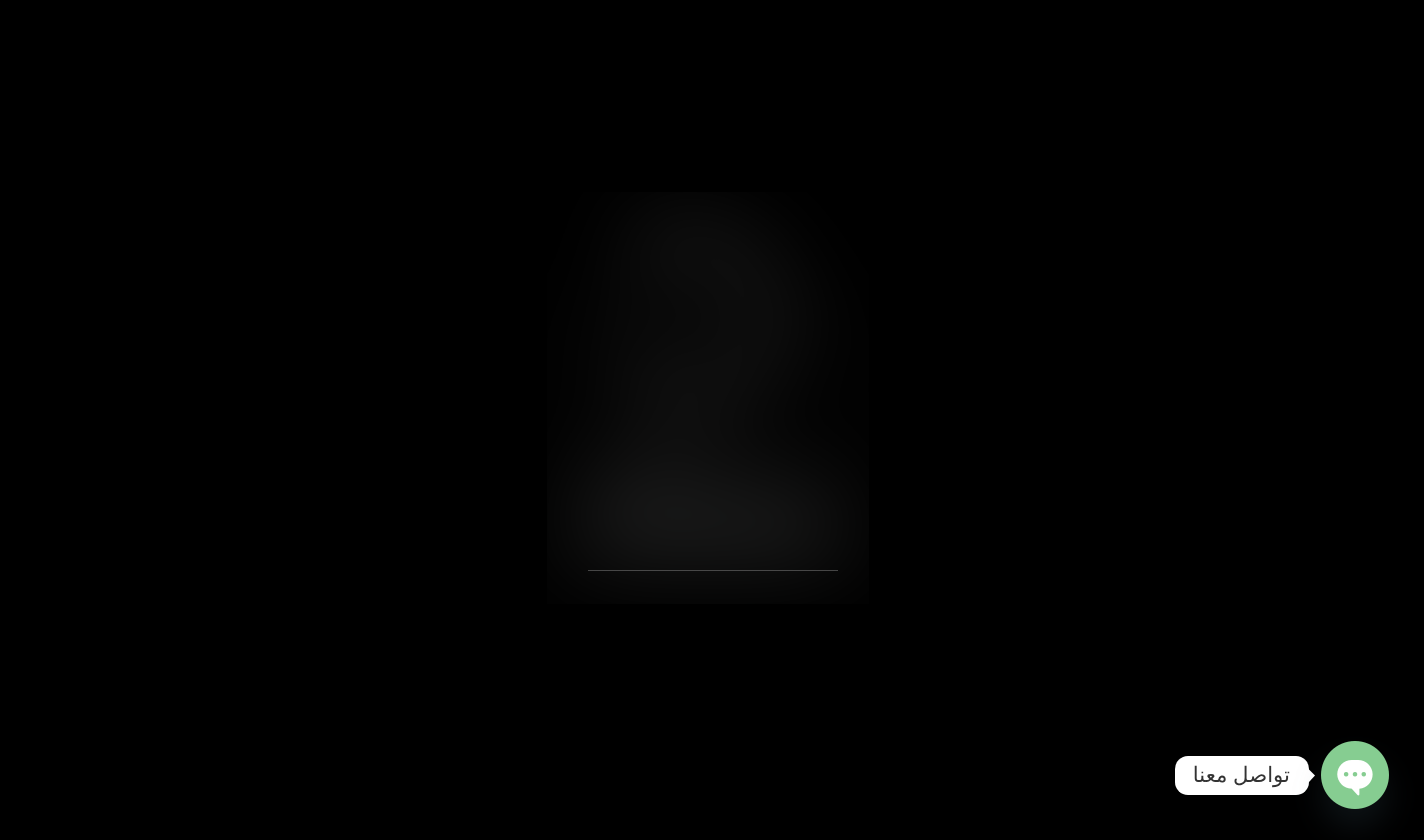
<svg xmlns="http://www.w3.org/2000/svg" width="1424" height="840">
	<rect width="100%" height="100%" fill="#000000" />
	<image x="547" y="192" width="322" height="412" href="assets/img1.png" />
	<rect x="588" y="570" width="250" height="1" fill="#848484" fill-opacity="0.5" />
	<rect x="1175" y="756" width="134" height="39" rx="13" fill="#FFFFFF" />
	<path d="M1309 782V769.5L1315 775.5Z" fill="#FFFFFF" />
	<rect x="1321" y="761" width="68" height="68" rx="34" fill="#49687E" fill-opacity="0.16" filter="blur(15px)" />
	<image x="1321" y="741" width="68" height="68" href="assets/img2.png" />
	<text x="1290" y="782" word-spacing="-1" font-family="DejaVu Sans" font-size="21.25" direction="rtl" fill="#333333">تواصل معنا</text>
</svg>
